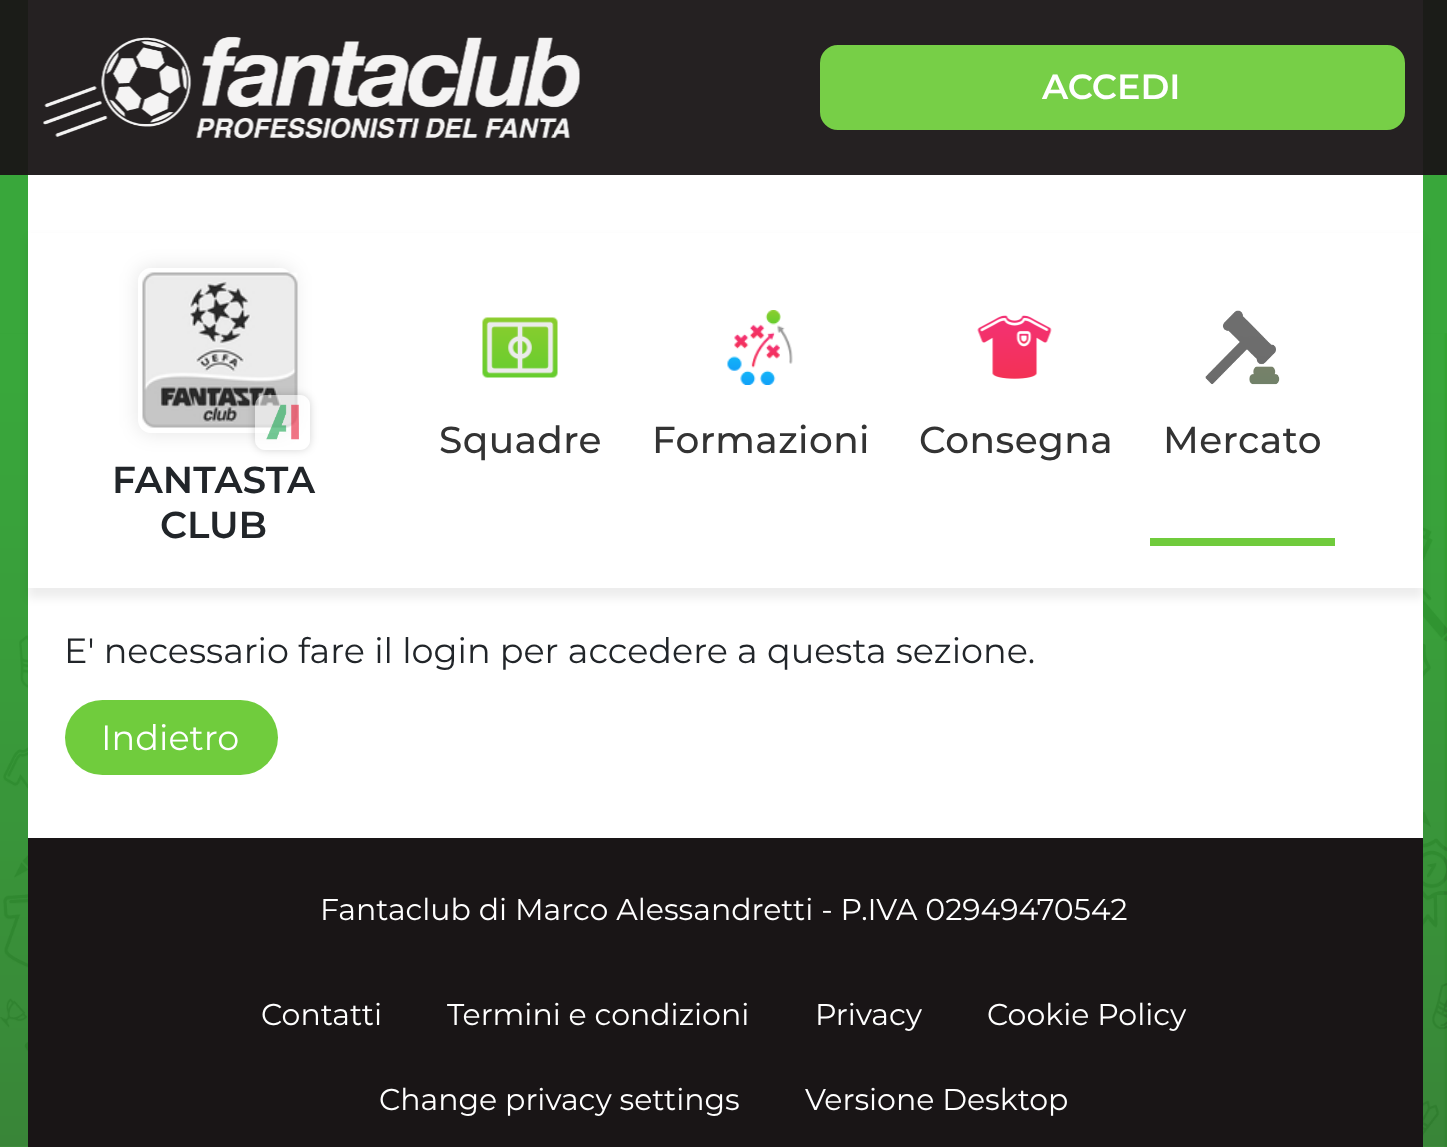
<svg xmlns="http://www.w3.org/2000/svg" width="1447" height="1147">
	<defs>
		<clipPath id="clip1"><path d="M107 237H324V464H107ZM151 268H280C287 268 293 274 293 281V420C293 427 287 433 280 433H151C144 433 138 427 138 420V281C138 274 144 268 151 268Z" clip-rule="evenodd" /></clipPath>
		<clipPath id="clip2"><path d="M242 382H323V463H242ZM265 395H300C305.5 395 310 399.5 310 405V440C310 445.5 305.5 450 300 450H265C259.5 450 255 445.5 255 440V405C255 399.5 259.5 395 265 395Z" clip-rule="evenodd" /></clipPath>
	</defs>
	<rect width="100%" height="100%" fill="#39A73B" />
	<rect x="0" y="0" width="1447" height="175" fill="#1B1C18" />
	<image x="0" y="333" width="1447" height="814" href="assets/img1.png" />
	<rect x="28" y="175" width="1395" height="663" fill="#FFFFFF" />
	<rect x="28" y="0" width="1395" height="175" fill="#252122" />
	<image x="43" y="36" width="537" height="103" href="assets/img2.png" />
	<rect x="821.5" y="46.5" width="582" height="82" rx="16.5" fill="#77CF47" stroke="#77CF47" stroke-width="3" />
	<text x="1042" y="99" font-family="Montserrat" font-size="35" font-weight="600" fill="#FFFFFF">ACCEDI</text>
	<rect x="28" y="238" width="1395" height="360" fill="#000000" fill-opacity="0.07" filter="blur(5px)" />
	<rect x="28" y="233" width="1395" height="355" fill="#FFFFFF" />
	<image x="482" y="317" width="76" height="61" href="assets/img3.png" />
	<text x="439" y="453" font-family="Montserrat" font-size="37.5" font-weight="500" letter-spacing="0.4" fill="#333333">Squadre</text>
	<image x="727" y="310" width="66" height="75" href="assets/img4.png" />
	<text x="652" y="453" font-family="Montserrat" font-size="37.5" font-weight="500" letter-spacing="0.4" fill="#333333">Formazioni</text>
	<image x="977" y="315" width="75" height="64" href="assets/img5.png" />
	<text x="919" y="453" font-family="Montserrat" font-size="37.5" font-weight="500" letter-spacing="0.4" fill="#333333">Consegna</text>
	<image x="1205" y="310" width="75" height="75" href="assets/img6.png" />
	<text x="1163" y="453" font-family="Montserrat" font-size="37.5" font-weight="500" letter-spacing="0.4" fill="#333333">Mercato</text>
	<rect x="1150" y="538" width="185" height="8" fill="#70CB3C" />
	<g clip-path="url(#clip1)">
		<rect x="138" y="268" width="155" height="165" rx="13" fill="#000000" fill-opacity="0.11" filter="blur(10px)" />
	</g>
	<image x="142" y="272" width="156" height="156" href="assets/img7.png" />
	<g clip-path="url(#clip2)">
		<rect x="255" y="395" width="55" height="55" rx="10" fill="#000000" fill-opacity="0.17" filter="blur(4px)" />
	</g>
	<rect x="255" y="395" width="55" height="55" rx="10" fill="#FFFFFF" fill-opacity="0.55" />
	<image x="266" y="404" width="33" height="36" href="assets/img8.png" />
	<g font-family="Montserrat" font-size="37.5" font-weight="600" fill="#212529">
		<text x="112" y="493">FANTASTA</text>
		<text x="160" y="538">CLUB</text>
	</g>
	<text x="64" y="663" font-family="Montserrat" font-size="35" fill="#212529">E' necessario fare il login per accedere a questa sezione.</text>
	<rect x="65" y="700" width="213" height="75" rx="37.5" fill="#70CC3D" />
	<text x="101" y="750" font-family="Montserrat" font-size="35" fill="#FFFFFF">Indietro</text>
	<rect x="28" y="838" width="1395" height="309" fill="#191516" />
	<g font-family="Montserrat" font-size="30" fill="#FFFFFF">
		<text x="320" y="920">Fantaclub di Marco Alessandretti - P.IVA 02949470542</text>
		<text x="261" y="1025">Contatti</text>
		<text x="447" y="1025">Termini e condizioni</text>
		<text x="815" y="1025">Privacy</text>
		<text x="987" y="1025">Cookie Policy</text>
		<text x="379" y="1110">Change privacy settings</text>
		<text x="805" y="1110">Versione Desktop</text>
	</g>
</svg>
